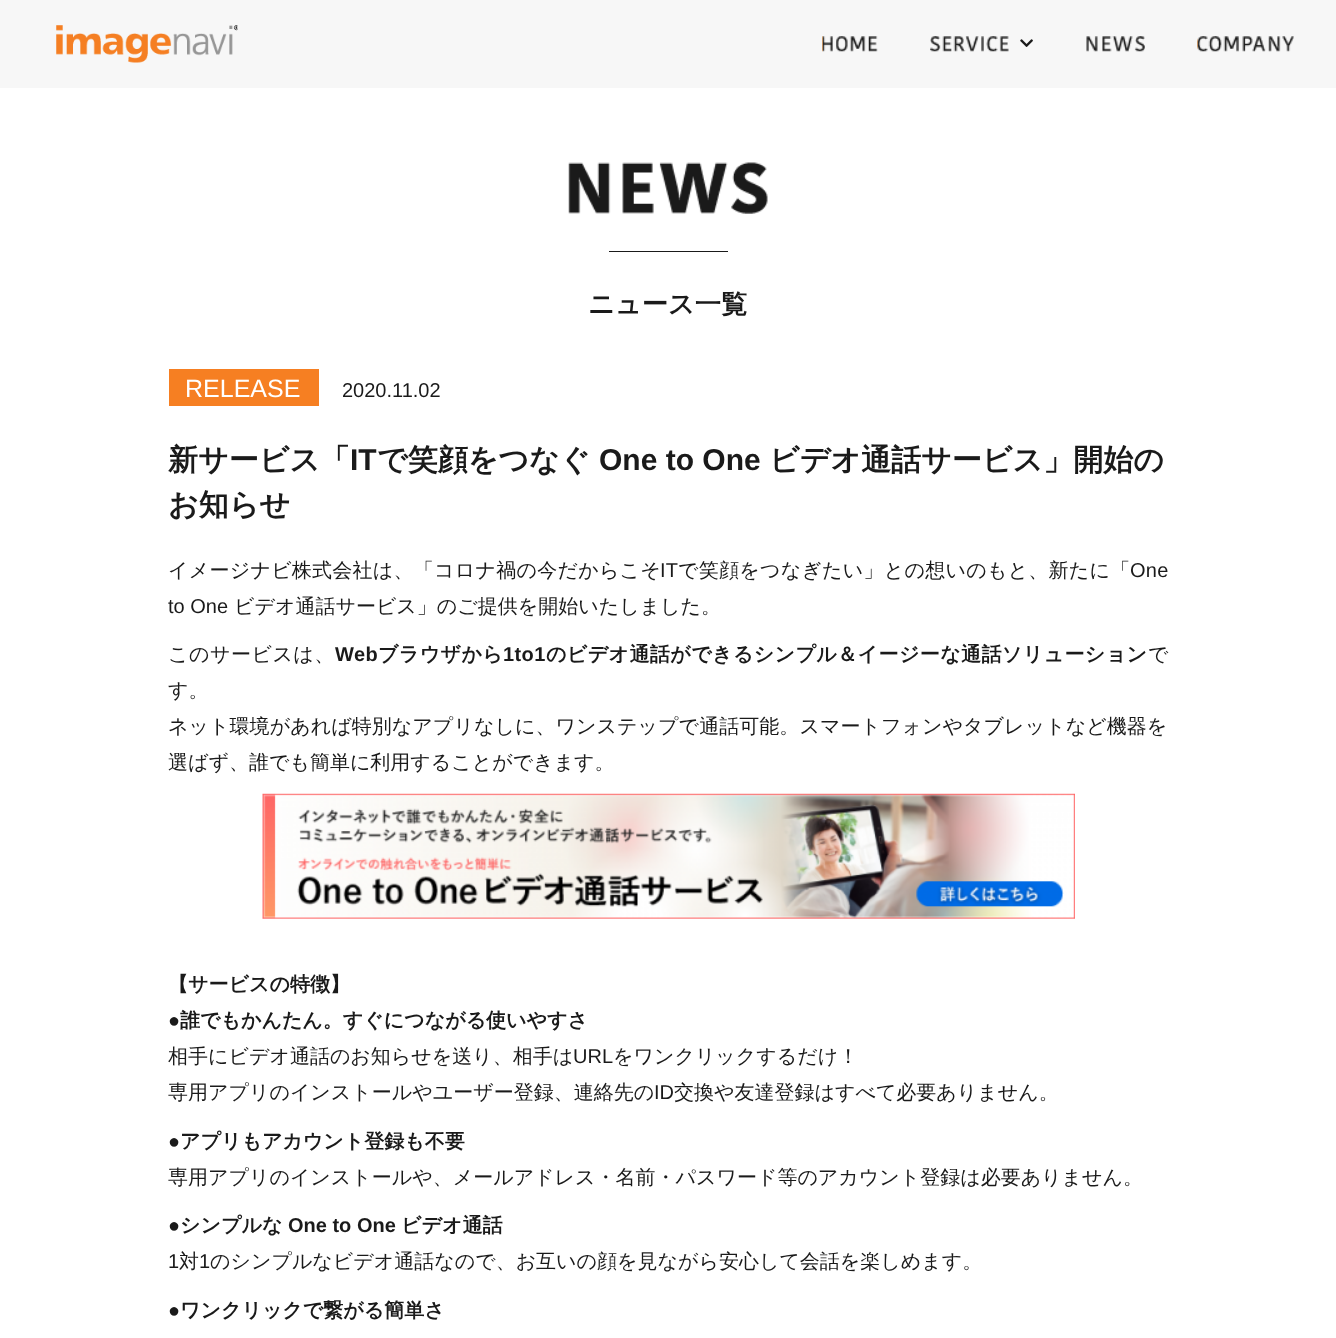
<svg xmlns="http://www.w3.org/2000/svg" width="1336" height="1338">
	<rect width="100%" height="100%" fill="#FFFFFF" />
	<rect x="0" y="0" width="1336" height="88" fill="#F7F7F7" />
	<image x="56" y="25" width="182" height="38" href="assets/img1.png" />
	<image x="822" y="36" width="1" height="16" href="assets/img2.png" />
	<image x="822" y="36" width="56" height="16" href="assets/img3.png" />
	<image x="930" y="36" width="79" height="16" href="assets/img4.png" />
	<image x="1020" y="39" width="13" height="8" href="assets/img5.png" />
	<image x="1086" y="36" width="59" height="16" href="assets/img6.png" />
	<image x="1197" y="38" width="1" height="12" href="assets/img7.png" />
	<image x="1197" y="36" width="97" height="16" href="assets/img8.png" />
	<image x="568" y="162" width="200" height="52" href="assets/img9.png" />
	<rect x="609" y="251" width="119" height="1" fill="#1A1A1A" />
	<text x="588" y="313" font-family="WenQuanYi Zen Hei" font-size="26.25" font-weight="700" fill="#1A1A1A">ニュース一覧</text>
	<rect x="169" y="369" width="150" height="37" fill="#F67F22" />
	<text x="185" y="397" font-family="Liberation Sans" font-size="25" fill="#FFFFFF">RELEASE</text>
	<text x="342" y="397" font-family="Liberation Sans" font-size="20" fill="#1A1A1A">2020.11.02</text>
	<text x="168" y="470" font-family="WenQuanYi Zen Hei" font-size="30" font-weight="700" fill="#1A1A1A">新サービス「</text>
	<text x="350" y="470" font-family="Liberation Sans" font-size="30" font-weight="700" fill="#1A1A1A">IT</text>
	<text x="377" y="470" font-family="WenQuanYi Zen Hei" font-size="30" font-weight="700" fill="#1A1A1A">で笑顔をつなぐ</text>
	<text x="599" y="470" font-family="Liberation Sans" font-size="30" font-weight="700" fill="#1A1A1A">One to One</text>
	<g font-family="WenQuanYi Zen Hei" font-size="30" font-weight="700" fill="#1A1A1A">
		<text x="769" y="470">ビデオ通話サービス」開始の</text>
		<text x="168" y="515">お知らせ</text>
	</g>
	<text x="168" y="577" font-family="WenQuanYi Zen Hei" font-size="20" font-weight="500" letter-spacing="0.25" fill="#1A1A1A">イメージナビ株式会社は、「コロナ禍の今だからこそ</text>
	<text x="660" y="577" font-family="Liberation Sans" font-size="20" letter-spacing="0.25" fill="#1A1A1A">IT</text>
	<text x="678" y="577" font-family="WenQuanYi Zen Hei" font-size="20" font-weight="500" letter-spacing="0.25" fill="#1A1A1A">で笑顔をつなぎたい」との想いのもと、新たに「</text>
	<text x="1130" y="577" font-family="Liberation Sans" font-size="20" letter-spacing="0.25" fill="#1A1A1A">One</text>
	<text x="168" y="613" font-family="Liberation Sans" font-size="20" fill="#1A1A1A">to One</text>
	<text x="234" y="613" font-family="WenQuanYi Zen Hei" font-size="20" font-weight="500" fill="#1A1A1A">ビデオ通話サービス」のご提供を開始いたしました。</text>
	<text x="168" y="661" font-family="WenQuanYi Zen Hei" font-size="20" font-weight="500" letter-spacing="0.5" fill="#1A1A1A">このサービスは、</text>
	<text x="335" y="661" font-family="Liberation Sans" font-size="20" font-weight="700" letter-spacing="0.4" fill="#1A1A1A">Web</text>
	<text x="378" y="661" font-family="WenQuanYi Zen Hei" font-size="20" font-weight="700" letter-spacing="0.4" fill="#1A1A1A">ブラウザから</text>
	<text x="503" y="661" font-family="Liberation Sans" font-size="20" font-weight="700" letter-spacing="0.4" fill="#1A1A1A">1to1</text>
	<text x="546" y="661" font-family="WenQuanYi Zen Hei" font-size="20" font-weight="700" letter-spacing="0.4" fill="#1A1A1A">のビデオ通話ができるシンプル＆イージーな通話ソリューション</text>
	<g font-family="WenQuanYi Zen Hei" font-size="20" font-weight="500" fill="#1A1A1A">
		<text x="1148" y="661">で</text>
		<text x="168" y="697">す。</text>
	</g>
	<text x="168" y="733" font-family="WenQuanYi Zen Hei" font-size="20" font-weight="500" letter-spacing="0.05" fill="#1A1A1A">ネット環境があれば特別なアプリなしに、ワンステップで通話可能。スマートフォンやタブレットなど機器を</text>
	<text x="168" y="769" font-family="WenQuanYi Zen Hei" font-size="20" font-weight="500" fill="#1A1A1A">選ばず、誰でも簡単に利用することができます。</text>
	<image x="262" y="793" width="813" height="126" href="assets/img10.png" />
	<text x="168" y="991" font-family="WenQuanYi Zen Hei" font-size="20" font-weight="700" fill="#1A1A1A">【サービスの特徴】</text>
	<text x="168" y="1027" font-family="Liberation Sans" font-size="20" font-weight="700" fill="#1A1A1A">●</text>
	<text x="180" y="1027" font-family="WenQuanYi Zen Hei" font-size="20" font-weight="700" fill="#1A1A1A">誰でもかんたん。すぐにつながる使いやすさ</text>
	<text x="168" y="1063" font-family="WenQuanYi Zen Hei" font-size="20" font-weight="500" fill="#1A1A1A">相手にビデオ通話のお知らせを送り、相手は</text>
	<text x="573" y="1063" font-family="Liberation Sans" font-size="20" fill="#1A1A1A">URL</text>
	<g font-family="WenQuanYi Zen Hei" font-size="20" font-weight="500" fill="#1A1A1A">
		<text x="613" y="1063">をワンクリックするだけ！</text>
		<text x="168" y="1099">専用アプリのインストールやユーザー登録、連絡先の</text>
	</g>
	<text x="654" y="1099" font-family="Liberation Sans" font-size="20" fill="#1A1A1A">ID</text>
	<text x="674" y="1099" font-family="WenQuanYi Zen Hei" font-size="20" font-weight="500" fill="#1A1A1A">交換や友達登録はすべて必要ありません。</text>
	<text x="168" y="1148" font-family="Liberation Sans" font-size="20" font-weight="700" fill="#1A1A1A">●</text>
	<text x="180" y="1148" font-family="WenQuanYi Zen Hei" font-size="20" font-weight="700" fill="#1A1A1A">アプリもアカウント登録も不要</text>
	<text x="168" y="1184" font-family="WenQuanYi Zen Hei" font-size="20" font-weight="500" fill="#1A1A1A">専用アプリのインストールや、メールアドレス・名前・パスワード等のアカウント登録は必要ありません。</text>
	<text x="168" y="1232" font-family="Liberation Sans" font-size="20" font-weight="700" fill="#1A1A1A">●</text>
	<text x="180" y="1232" font-family="WenQuanYi Zen Hei" font-size="20" font-weight="700" fill="#1A1A1A">シンプルな</text>
	<text x="288" y="1232" font-family="Liberation Sans" font-size="20" font-weight="700" fill="#1A1A1A">One to One</text>
	<text x="401" y="1232" font-family="WenQuanYi Zen Hei" font-size="20" font-weight="700" fill="#1A1A1A">ビデオ通話</text>
	<text x="168" y="1268" font-family="Liberation Sans" font-size="20" fill="#1A1A1A">1</text>
	<text x="179" y="1268" font-family="WenQuanYi Zen Hei" font-size="20" font-weight="500" fill="#1A1A1A">対</text>
	<text x="199" y="1268" font-family="Liberation Sans" font-size="20" fill="#1A1A1A">1</text>
	<text x="210" y="1268" font-family="WenQuanYi Zen Hei" font-size="20" font-weight="500" fill="#1A1A1A">のシンプルなビデオ通話なので、お互いの顔を見ながら安心して会話を楽しめます。</text>
	<text x="168" y="1317" font-family="Liberation Sans" font-size="20" font-weight="700" fill="#1A1A1A">●</text>
	<text x="180" y="1317" font-family="WenQuanYi Zen Hei" font-size="20" font-weight="700" fill="#1A1A1A">ワンクリックで繋がる簡単さ</text>
</svg>
